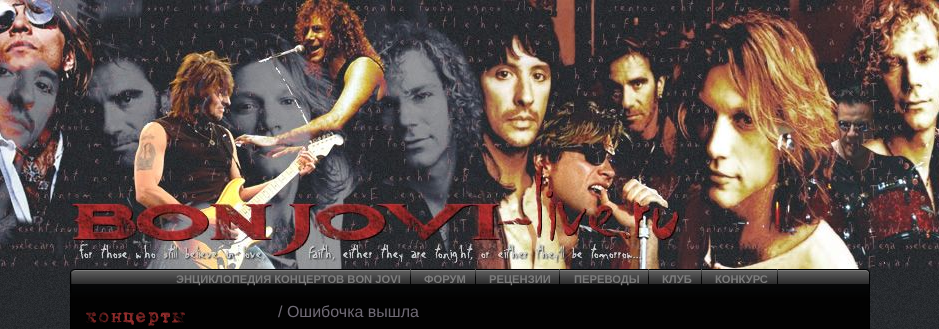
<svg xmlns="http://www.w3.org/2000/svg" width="939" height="329">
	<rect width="100%" height="100%" fill="#FFFFFF" />
	<image x="0" y="269" width="939" height="60" href="assets/img1.png" />
	<image x="0" y="0" width="939" height="269" href="assets/img2.png" />
	<image x="70" y="269" width="800" height="28" href="assets/img3.png" />
	<image x="70" y="269" width="5" height="24" href="assets/img4.png" />
	<image x="866" y="269" width="4" height="24" href="assets/img5.png" />
	<text x="176" y="283" font-family="Liberation Sans" font-size="11.2" font-weight="700" fill="#7D7D7D">ЭНЦИКЛОПЕДИЯ КОНЦЕРТОВ BON JOVI</text>
	<image x="410" y="269" width="1" height="15" href="assets/img6.png" />
	<text x="424" y="283" font-family="Liberation Sans" font-size="11.2" font-weight="700" fill="#7D7D7D">ФОРУМ</text>
	<image x="475" y="269" width="1" height="15" href="assets/img6.png" />
	<text x="489" y="283" font-family="Liberation Sans" font-size="11.2" font-weight="700" fill="#7D7D7D">РЕЦЕНЗИИ</text>
	<image x="559" y="269" width="1" height="15" href="assets/img6.png" />
	<text x="574" y="283" font-family="Liberation Sans" font-size="11.2" font-weight="700" fill="#7D7D7D">ПЕРЕВОДЫ</text>
	<image x="648" y="269" width="1" height="15" href="assets/img6.png" />
	<text x="662" y="283" font-family="Liberation Sans" font-size="11.2" font-weight="700" fill="#7D7D7D">КЛУБ</text>
	<image x="701" y="269" width="1" height="15" href="assets/img6.png" />
	<text x="715" y="283" font-family="Liberation Sans" font-size="11.2" font-weight="700" fill="#7D7D7D">КОНКУРС</text>
	<image x="777" y="269" width="1" height="15" href="assets/img6.png" />
	<rect x="71" y="297" width="798" height="32" fill="#020202" />
	<rect x="869" y="297" width="1" height="32" fill="#000000" />
	<rect x="70" y="297" width="1" height="32" fill="#000000" />
	<image x="86" y="312" width="99" height="14" href="assets/img7.png" />
	<text x="278" y="317" font-family="Liberation Sans" font-size="16" fill="#6F6A75">/ Ошибочка вышла</text>
</svg>
